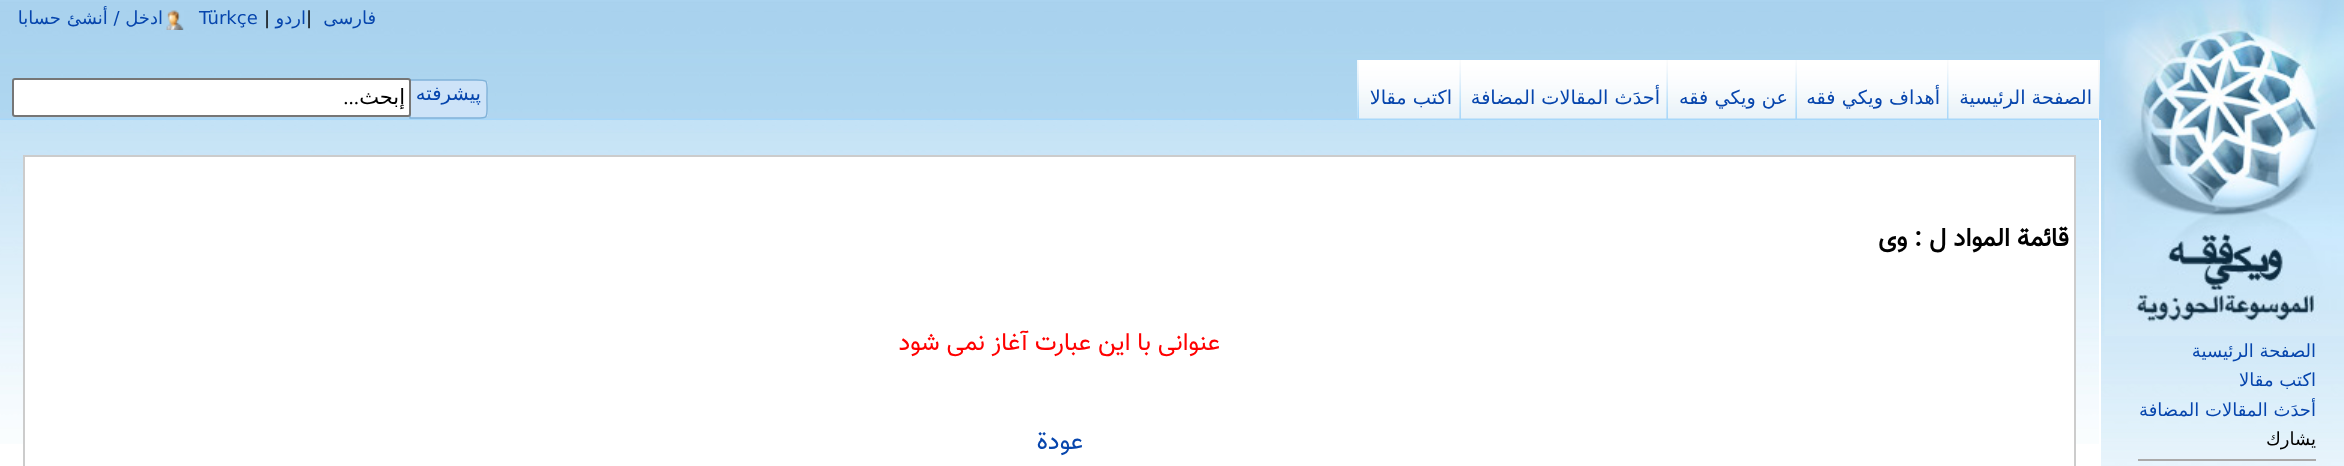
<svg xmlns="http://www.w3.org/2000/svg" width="2344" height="466">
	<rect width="100%" height="100%" fill="#FFFFFF" />
	<image x="0" y="0" width="2344" height="466" href="assets/img1.png" />
	<text x="376" y="24" font-family="DejaVu Sans" font-size="18" direction="rtl" fill="#0645AD">فارسی</text>
	<text x="306" y="24" font-family="DejaVu Sans" font-size="18" fill="#000000">|</text>
	<text x="306" y="24" font-family="DejaVu Sans" font-size="18" direction="rtl" fill="#0645AD">اردو</text>
	<text x="264" y="24" font-family="DejaVu Sans" font-size="18" fill="#000000">|</text>
	<text x="199" y="24" font-family="DejaVu Sans" font-size="18" fill="#0645AD">Türkçe</text>
	<image x="166" y="10" width="18" height="20" href="assets/img2.png" />
	<text x="163" y="24" font-family="DejaVu Sans" font-size="18" direction="rtl" fill="#0645AD">ادخل / أنشئ حسابا</text>
	<image x="0" y="118" width="2105" height="2" href="assets/img13.png" />
	<image x="2099" y="60" width="1" height="59" href="assets/img3.png" />
	<image x="1357" y="60" width="439" height="59" href="assets/img4.png" />
	<rect x="2098" y="60" width="1" height="60" fill="#F3F3F3" />
	<image x="1947" y="60" width="152" height="60" href="assets/img5.png" />
	<image x="1947" y="60" width="2" height="59" href="assets/img6.png" />
	<text x="2092" y="104" font-family="DejaVu Sans" font-size="19.25" direction="rtl" fill="#0645AD">الصفحة الرئيسية</text>
	<image x="1357" y="60" width="103" height="60" href="assets/img11.png" />
	<image x="1459" y="60" width="208" height="60" href="assets/img10.png" />
	<image x="1666" y="60" width="130" height="60" href="assets/img9.png" />
	<image x="1795" y="60" width="152" height="60" href="assets/img7.png" />
	<image x="1795" y="60" width="2" height="60" href="assets/img8.png" />
	<text x="1940" y="104" font-family="DejaVu Sans" font-size="19.25" direction="rtl" fill="#0645AD">أهداف ويكي فقه</text>
	<image x="1666" y="60" width="2" height="60" href="assets/img8.png" />
	<text x="1788" y="104" font-family="DejaVu Sans" font-size="19.25" direction="rtl" fill="#0645AD">عن ويكي فقه</text>
	<image x="1459" y="60" width="2" height="60" href="assets/img8.png" />
	<text x="1660" y="104" font-family="DejaVu Sans" font-size="19.25" direction="rtl" fill="#0645AD">أحدَث المقالات المضافة</text>
	<image x="1357" y="60" width="2" height="59" href="assets/img12.png" />
	<text x="1452" y="104" font-family="DejaVu Sans" font-size="19.25" direction="rtl" fill="#0645AD">اكتب مقالا</text>
	<path d="M410 80H480C484 80 488 81 488 83V115C488 117 484 118 480 118H410Z" fill="#CDE3F8" />
	<path d="M410 80H469C490 80 487 77.5 487 99C487 120.5 490 118 469 118H410Z" fill="none" stroke="#81B3D9" stroke-width="1.5" />
	<text x="481" y="100" font-family="DejaVu Sans" font-size="19.5" direction="rtl" fill="#0645AD">پیشرفته</text>
	<rect x="13" y="79" width="397" height="37" rx="2" fill="#FFFFFF" stroke="#767676" stroke-width="2" />
	<text x="405" y="104" font-family="DejaVu Sans" font-size="21" direction="rtl" fill="#000000">إبحث</text>
	<text x="359" y="104" font-family="Liberation Serif" font-size="21" direction="rtl" fill="#000000">...</text>
	<image x="2104" y="0" width="240" height="336" href="assets/img14.png" />
	<g font-family="DejaVu Sans" font-size="18" direction="rtl" fill="#0645AD">
		<text x="2316" y="357">الصفحة الرئيسية</text>
		<text x="2316" y="386">اكتب مقالا</text>
		<text x="2316" y="416">أحدَث المقالات المضافة</text>
	</g>
	<text x="2316" y="445" font-family="DejaVu Sans" font-size="18" direction="rtl" fill="#000000">يشارك</text>
	<rect x="2138" y="459" width="178" height="2" fill="#AAAAAA" />
	<rect x="0" y="444" width="2099" height="22" fill="#FFFFFF" />
	<image x="0" y="120" width="2099" height="324" href="assets/img15.png" />
	<rect x="2099" y="120" width="2" height="346" fill="#FFFFFF" />
	<rect x="25" y="157" width="2049" height="287" fill="#FFFFFF" />
	<rect x="24" y="156" width="2051" height="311" fill="none" stroke="#CCCCCC" stroke-width="2" />
	<text x="2069" y="246" font-family="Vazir" font-size="25.5" font-weight="700" direction="rtl" fill="#000000">قائمة المواد ل : وی</text>
	<text x="1220" y="350" font-family="Vazir" font-size="24.75" direction="rtl" fill="#FF0000">عنوانی با این عبارت آغاز نمی شود</text>
	<text x="1083" y="449" font-family="Vazir" font-size="24.75" direction="rtl" fill="#0645AD">عودة</text>
</svg>
